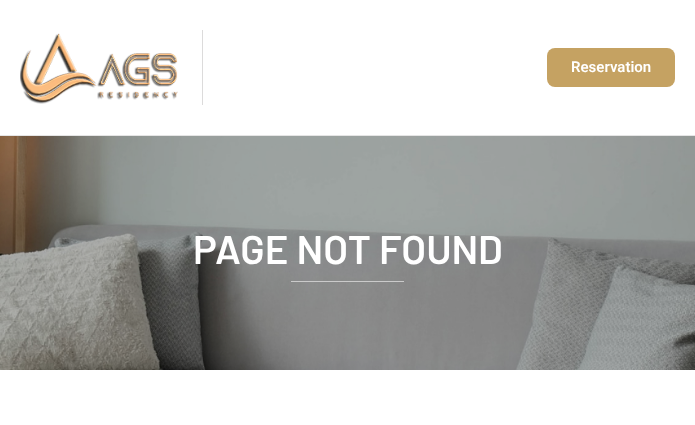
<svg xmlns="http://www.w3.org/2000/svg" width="695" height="425">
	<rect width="100%" height="100%" fill="#FFFFFF" />
	<rect x="0" y="135" width="695" height="1" fill="#E5E5E5" />
	<rect x="202" y="30" width="1" height="75" fill="#DCDBDB" />
	<image x="20" y="33" width="158" height="71" href="assets/img1.png" />
	<rect x="547" y="48" width="128" height="39" rx="8" fill="#C5A262" />
	<text x="571" y="72" font-family="Roboto" font-size="15" font-weight="600" fill="#FFFFFF">Reservation</text>
	<image x="0" y="136" width="695" height="234" href="assets/img2.png" />
	<text x="193" y="264" font-family="Barlow" font-size="40" font-weight="600" fill="#FFFFFF">PAGE NOT FOUND</text>
	<rect x="291" y="281" width="113" height="1" fill="#CACACA" />
</svg>
